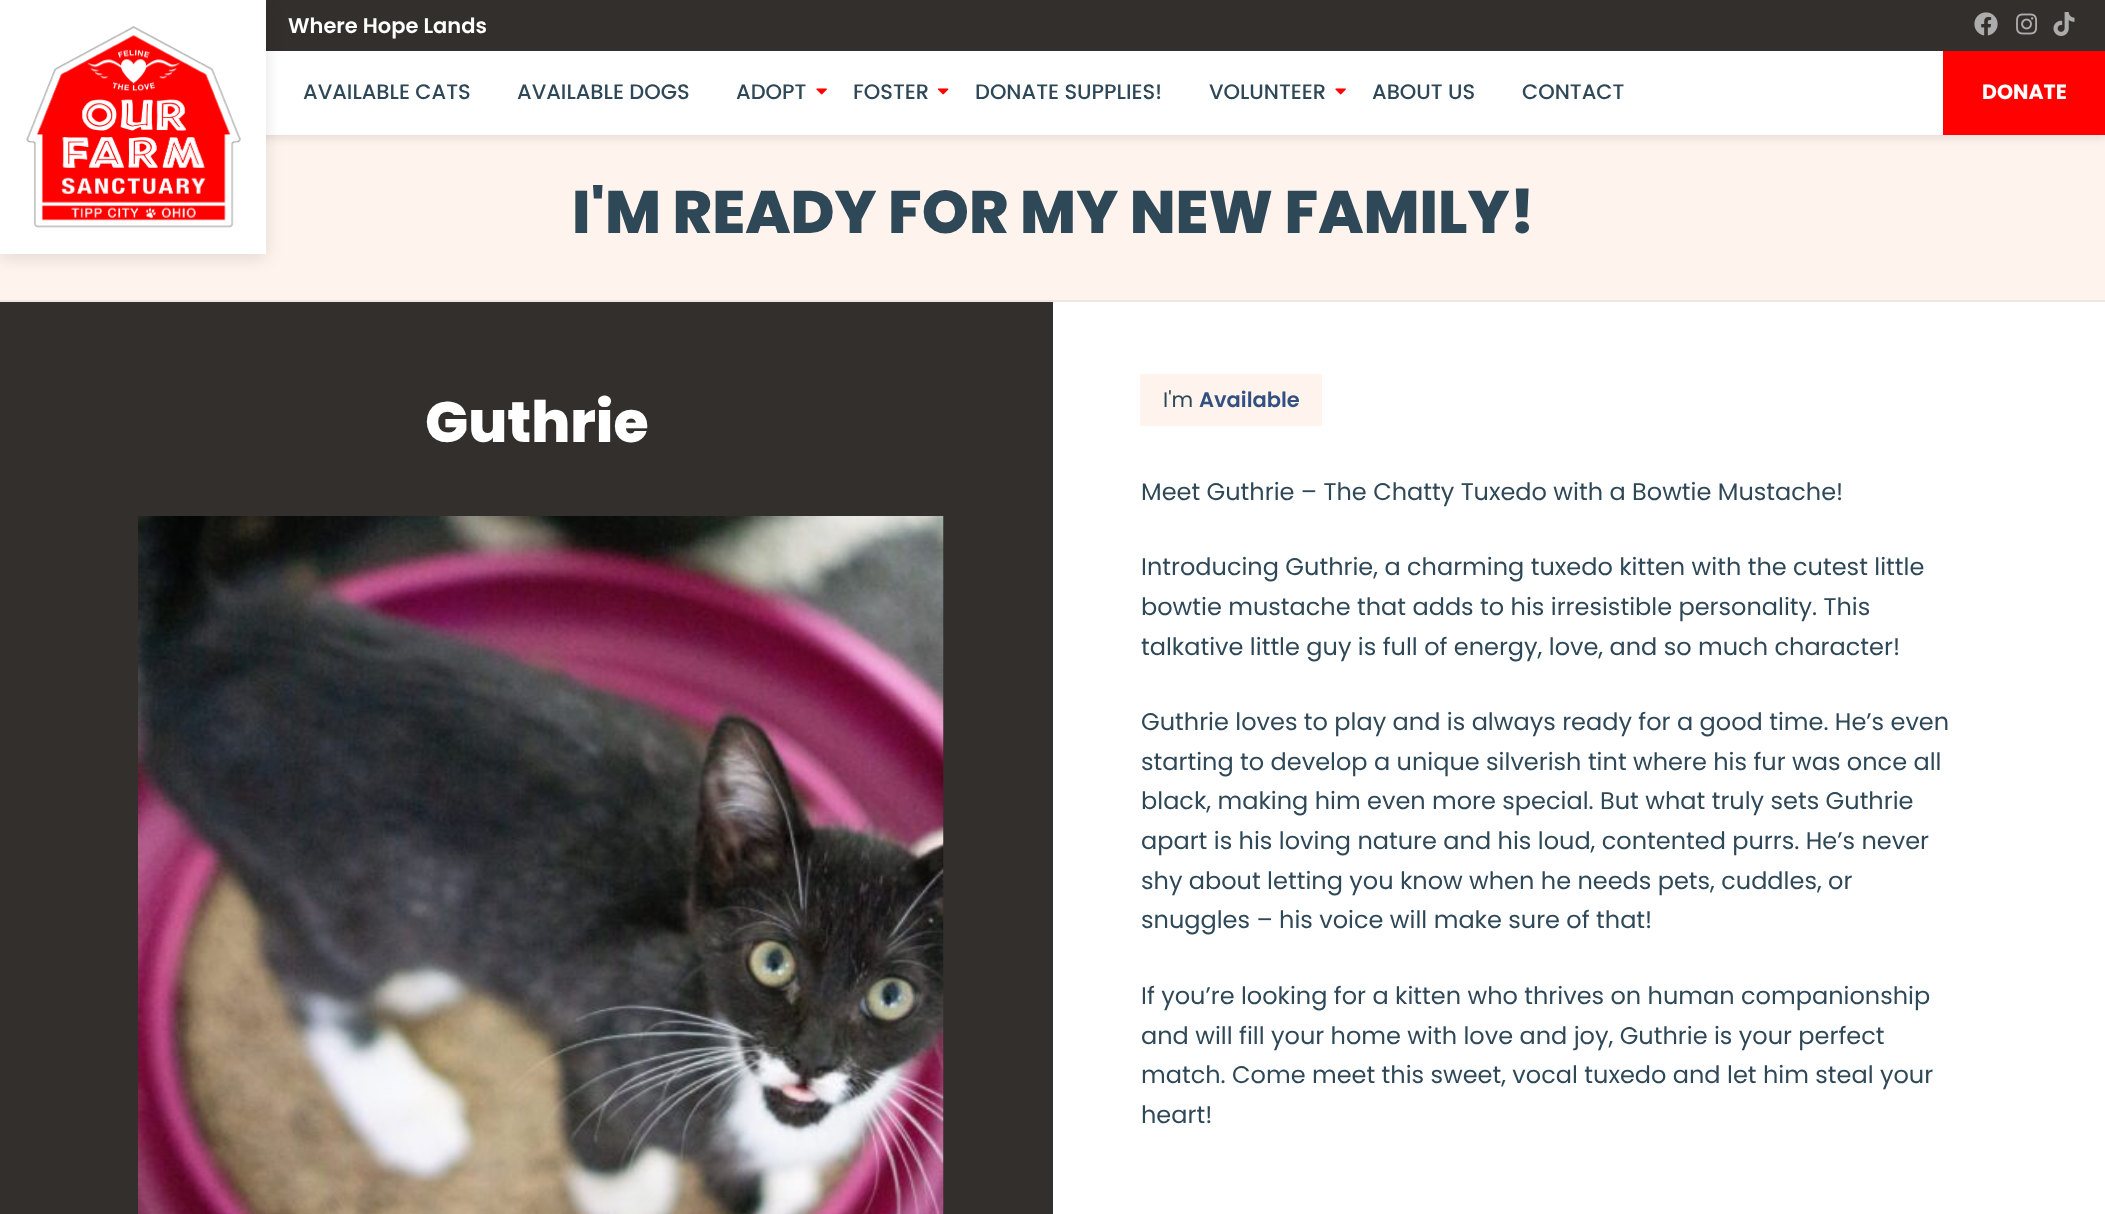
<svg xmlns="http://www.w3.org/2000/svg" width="2105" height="1214">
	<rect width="100%" height="100%" fill="#FFFFFF" />
	<rect x="0" y="135" width="2105" height="165" fill="#FFF4ED" />
	<rect x="0" y="3" width="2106" height="135" fill="#000000" fill-opacity="0.1" filter="blur(4.5px)" />
	<rect x="266" y="51" width="1677" height="84" fill="#FFFFFF" />
	<rect x="266" y="0" width="1839" height="51" fill="#332F2D" />
	<rect x="0" y="5" width="266" height="253" fill="#000000" fill-opacity="0.11" filter="blur(8px)" />
	<rect x="0" y="0" width="266" height="254" fill="#FFFFFF" />
	<image x="26" y="26" width="215" height="202" href="assets/img1.png" />
	<text x="288" y="33" font-family="Poppins" font-size="21" font-weight="600" fill="#FFFFFF">Where Hope Lands</text>
	<image x="1974" y="12" width="24" height="24" href="assets/img2.png" />
	<image x="2016" y="13" width="22" height="22" href="assets/img3.png" />
	<image x="2053" y="12" width="22" height="24" href="assets/img4.png" />
	<g font-family="Poppins" font-size="21" font-weight="500" fill="#2F4858">
		<text x="303" y="99">AVAILABLE CATS</text>
		<text x="517" y="99">AVAILABLE DOGS</text>
		<text x="736" y="99">ADOPT</text>
	</g>
	<image x="816" y="88" width="11" height="7" href="assets/img5.png" />
	<text x="853" y="99" font-family="Poppins" font-size="21" font-weight="500" fill="#2F4858">FOSTER</text>
	<image x="937" y="88" width="12" height="7" href="assets/img6.png" />
	<g font-family="Poppins" font-size="21" font-weight="500" fill="#2F4858">
		<text x="975" y="99">DONATE SUPPLIES!</text>
		<text x="1209" y="99">VOLUNTEER</text>
	</g>
	<image x="1335" y="88" width="11" height="7" href="assets/img5.png" />
	<g font-family="Poppins" font-size="21" font-weight="500" fill="#2F4858">
		<text x="1372" y="99">ABOUT US</text>
		<text x="1522" y="99">CONTACT</text>
	</g>
	<rect x="1943" y="51" width="162" height="84" fill="#FF0100" />
	<text x="1982" y="99" font-family="Poppins" font-size="20.5" font-weight="700" fill="#FFFFFF">DONATE</text>
	<rect x="0" y="300" width="2105" height="2" fill="#F0E5DF" />
	<text x="572" y="233" font-family="Poppins" font-size="60" font-weight="800" fill="#2F4858">I'M READY FOR MY NEW FAMILY!</text>
	<rect x="0" y="302" width="1053" height="912" fill="#332F2D" />
	<text x="425" y="442" font-family="Poppins" font-size="57" font-weight="800" fill="#FFFFFF">Guthrie</text>
	<image x="138" y="516" width="806" height="698" href="assets/img7.png" />
	<rect x="1140" y="374" width="182" height="52" fill="#FFF4ED" />
	<text x="1163" y="407" font-family="Poppins" font-size="21" fill="#2F4858">I'm</text>
	<text x="1199" y="407" font-family="Poppins" font-size="21" font-weight="600" fill="#325081">Available</text>
	<g font-family="Poppins" font-size="24" fill="#2F4858">
		<text x="1141" y="500">Meet Guthrie – The Chatty Tuxedo with a Bowtie Mustache!</text>
		<text x="1141" y="575">Introducing Guthrie, a charming tuxedo kitten with the cutest little</text>
		<text x="1141" y="615">bowtie mustache that adds to his irresistible personality. This</text>
		<text x="1141" y="655">talkative little guy is full of energy, love, and so much character!</text>
		<text x="1141" y="730">Guthrie loves to play and is always ready for a good time. He’s even</text>
		<text x="1141" y="770">starting to develop a unique silverish tint where his fur was once all</text>
		<text x="1141" y="809">black, making him even more special. But what truly sets Guthrie</text>
		<text x="1141" y="849">apart is his loving nature and his loud, contented purrs. He’s never</text>
		<text x="1141" y="889">shy about letting you know when he needs pets, cuddles, or</text>
		<text x="1141" y="928">snuggles – his voice will make sure of that!</text>
		<text x="1141" y="1004">If you’re looking for a kitten who thrives on human companionship</text>
		<text x="1141" y="1044">and will fill your home with love and joy, Guthrie is your perfect</text>
		<text x="1141" y="1083">match. Come meet this sweet, vocal tuxedo and let him steal your</text>
		<text x="1141" y="1123">heart!</text>
	</g>
</svg>
